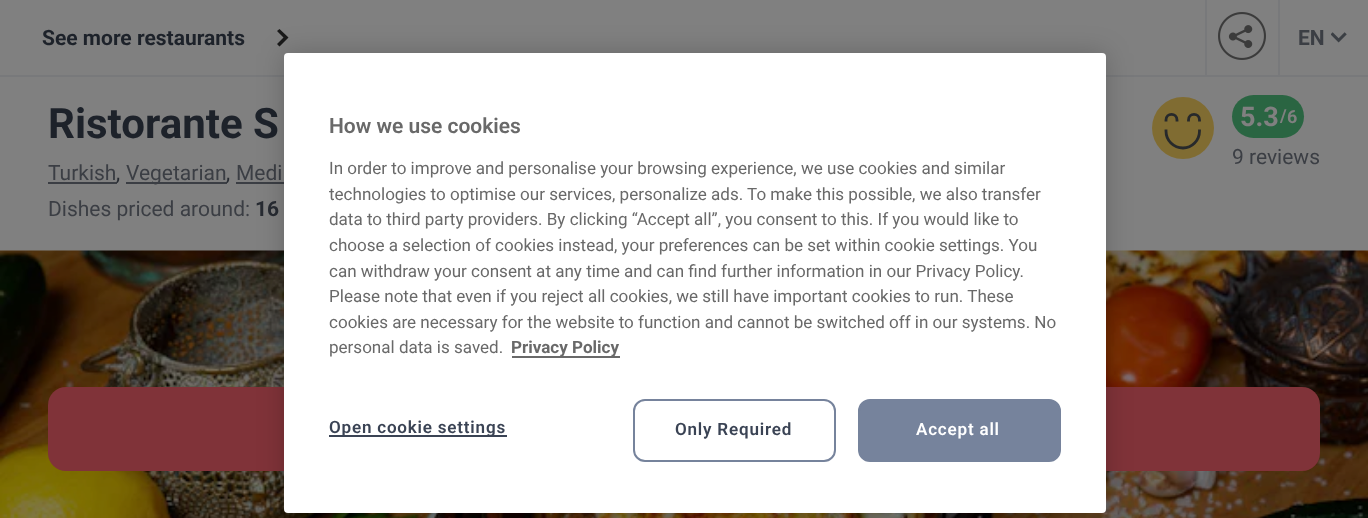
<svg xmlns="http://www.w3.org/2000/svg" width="1368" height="518">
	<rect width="100%" height="100%" fill="#808080" />
	<rect x="0" y="75" width="1368" height="2" fill="#78797B" />
	<text x="42" y="45" font-family="Roboto" font-size="21" font-weight="700" fill="#1D222A">See more restaurants</text>
	<path d="M279.5 29L277 31L283.5 37.5L277 44L279.5 46.5L288.5 37.5Z" fill="#1A1A1A" />
	<rect x="1205" y="0" width="2" height="75" fill="#78797B" />
	<image x="1218" y="12" width="48" height="48" href="assets/img1.png" />
	<rect x="1278" y="0" width="2" height="75" fill="#78797B" />
	<text x="1298" y="45" font-family="Roboto" font-size="21" font-weight="700" fill="#3B3E44">EN</text>
	<image x="1331" y="32" width="16" height="11" href="assets/img2.png" />
	<text x="48" y="138" font-family="Roboto" font-size="42" font-weight="700" fill="#1D222A">Ristorante S</text>
	<text x="48" y="180" font-family="Roboto" font-size="21" fill="#3B3E44">Turkish</text>
	<rect x="48" y="182" width="69" height="2" fill="#3B3E44" />
	<text x="116" y="180" font-family="Roboto" font-size="21" fill="#272B32">,</text>
	<rect x="126" y="182" width="101" height="2" fill="#3B3E44" />
	<text x="126" y="180" font-family="Roboto" font-size="21" fill="#3B3E44">Vegetarian</text>
	<text x="226" y="180" font-family="Roboto" font-size="21" fill="#272B32">,</text>
	<text x="236" y="180" font-family="Roboto" font-size="21" fill="#3B3E44">Medi</text>
	<rect x="236" y="182" width="48" height="2" fill="#3B3E44" />
	<text x="48" y="216" font-family="Roboto" font-size="21" fill="#3B3E44">Dishes priced around:</text>
	<text x="255" y="216" font-family="Roboto" font-size="21" font-weight="700" fill="#272B32">16</text>
	<circle cx="1183" cy="128" r="31" fill="#806C32" />
	<path d="M1199.5 131C1199.5 140.5 1192 148 1183 148C1173.5 148 1166 140.5 1166 131M1199.5 120C1199.5 112.5 1188.5 112.5 1188.5 120M1177 120C1177 112.5 1166 112.5 1166 120" fill="none" stroke="#27292B" stroke-width="2.8" stroke-linecap="square" />
	<rect x="1232" y="95" width="72" height="43" rx="21.5" fill="#2A6542" />
	<text x="1240" y="126" font-family="Roboto" font-size="27" font-weight="700" fill="#808080">5.3</text>
	<g font-family="Roboto" font-size="18" font-weight="700" fill="#808080">
		<text x="1280" y="122">/</text>
		<text x="1287" y="123">6</text>
	</g>
	<text x="1232" y="164" font-family="Roboto" font-size="21" fill="#3B3E44">9 reviews</text>
	<image x="0" y="250" width="1368" height="268" href="assets/img3.png" />
	<rect x="48" y="387" width="1272" height="84" rx="18" fill="#803339" />
	<rect x="284" y="53" width="822" height="460" rx="4" fill="#000000" fill-opacity="0.2" filter="blur(13.5px)" />
	<rect x="284" y="53" width="822" height="460" rx="4" fill="#FFFFFF" />
	<text x="329" y="133" font-family="Roboto" font-size="21" font-weight="600" fill="#696969">How we use cookies</text>
	<g font-family="Roboto" font-size="17.05" fill="#696969">
		<text x="329" y="174">In order to improve and personalise your browsing experience, we use cookies and similar</text>
		<text x="329" y="200">technologies to optimise our services, personalize ads. To make this possible, we also transfer</text>
		<text x="329" y="225">data to third party providers. By clicking “Accept all”, you consent to this. If you would like to</text>
		<text x="329" y="251">choose a selection of cookies instead, your preferences can be set within cookie settings. You</text>
		<text x="329" y="277">can withdraw your consent at any time and can find further information in our Privacy Policy.</text>
		<text x="329" y="302">Please note that even if you reject all cookies, we still have important cookies to run. These</text>
		<text x="329" y="328">cookies are necessary for the website to function and cannot be switched off in our systems. No</text>
		<text x="329" y="353">personal data is saved.</text>
	</g>
	<rect x="512" y="356" width="108" height="2" fill="#696969" />
	<text x="511" y="353" font-family="Roboto" font-size="17.05" font-weight="700" fill="#696969">Privacy Policy</text>
	<rect x="329" y="435" width="178" height="2" fill="#3A4354" />
	<text x="329" y="433" font-family="Roboto" font-size="17.05" font-weight="600" letter-spacing="0.8" fill="#3A4354">Open cookie settings</text>
	<rect x="634" y="400" width="201" height="61" rx="11" fill="none" stroke="#76839C" stroke-width="2" />
	<text x="675" y="435" font-family="Roboto" font-size="17.05" font-weight="600" letter-spacing="0.8" fill="#3A4354">Only Required</text>
	<rect x="859" y="400" width="201" height="61" rx="11" fill="#76839C" stroke="#76839C" stroke-width="2" />
	<text x="916" y="435" font-family="Roboto" font-size="17.05" font-weight="600" letter-spacing="0.8" fill="#FFFFFF">Accept all</text>
</svg>
